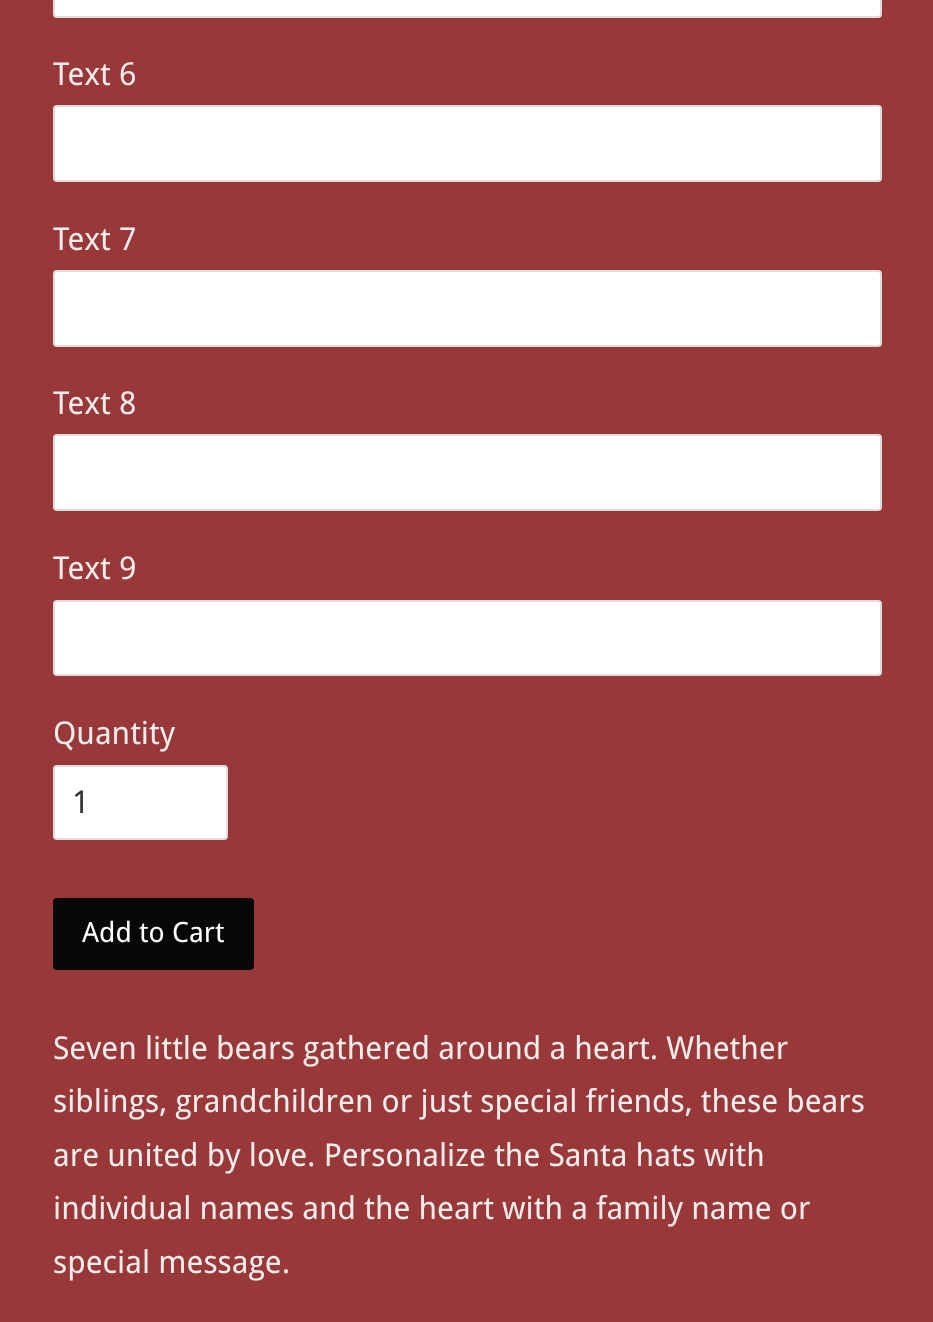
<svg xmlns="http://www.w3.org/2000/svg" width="933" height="1322">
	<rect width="100%" height="100%" fill="#983838" />
	<rect x="54" y="-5" width="827" height="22" rx="3" fill="#FFFFFF" stroke="#DDDDDD" stroke-width="2" />
	<text x="53" y="85" font-family="Droid Sans" font-size="31.5" fill="#F5ECEC">Text 6</text>
	<rect x="54" y="106" width="827" height="75" rx="3" fill="#FFFFFF" stroke="#DDDDDD" stroke-width="2" />
	<text x="53" y="250" font-family="Droid Sans" font-size="31.5" fill="#F5ECEC">Text 7</text>
	<rect x="54" y="271" width="827" height="75" rx="3" fill="#FFFFFF" stroke="#DDDDDD" stroke-width="2" />
	<text x="53" y="414" font-family="Droid Sans" font-size="31.5" fill="#F5ECEC">Text 8</text>
	<rect x="54" y="435" width="827" height="75" rx="3" fill="#FFFFFF" stroke="#DDDDDD" stroke-width="2" />
	<text x="53" y="579" font-family="Droid Sans" font-size="31.5" fill="#F5ECEC">Text 9</text>
	<rect x="54" y="601" width="827" height="74" rx="3" fill="#FFFFFF" stroke="#DDDDDD" stroke-width="2" />
	<text x="53" y="744" font-family="Droid Sans" font-size="31.5" fill="#F5ECEC">Quantity</text>
	<rect x="54" y="766" width="173" height="73" rx="3" fill="#FFFFFF" stroke="#DDDDDD" stroke-width="2" />
	<text x="72" y="813" font-family="Droid Sans" font-size="31.5" fill="#333333">1</text>
	<rect x="53" y="898" width="201" height="72" rx="4" fill="#080808" />
	<text x="82" y="942" font-family="Droid Sans" font-size="28" fill="#FFFFFF">Add to Cart</text>
	<g font-family="Droid Sans" font-size="31.5" fill="#F5ECEC">
		<text x="53" y="1059">Seven little bears gathered around a heart. Whether</text>
		<text x="53" y="1112">siblings, grandchildren or just special friends, these bears</text>
		<text x="53" y="1166">are united by love. Personalize the Santa hats with</text>
		<text x="53" y="1219">individual names and the heart with a family name or</text>
		<text x="53" y="1273">special message.</text>
	</g>
</svg>
